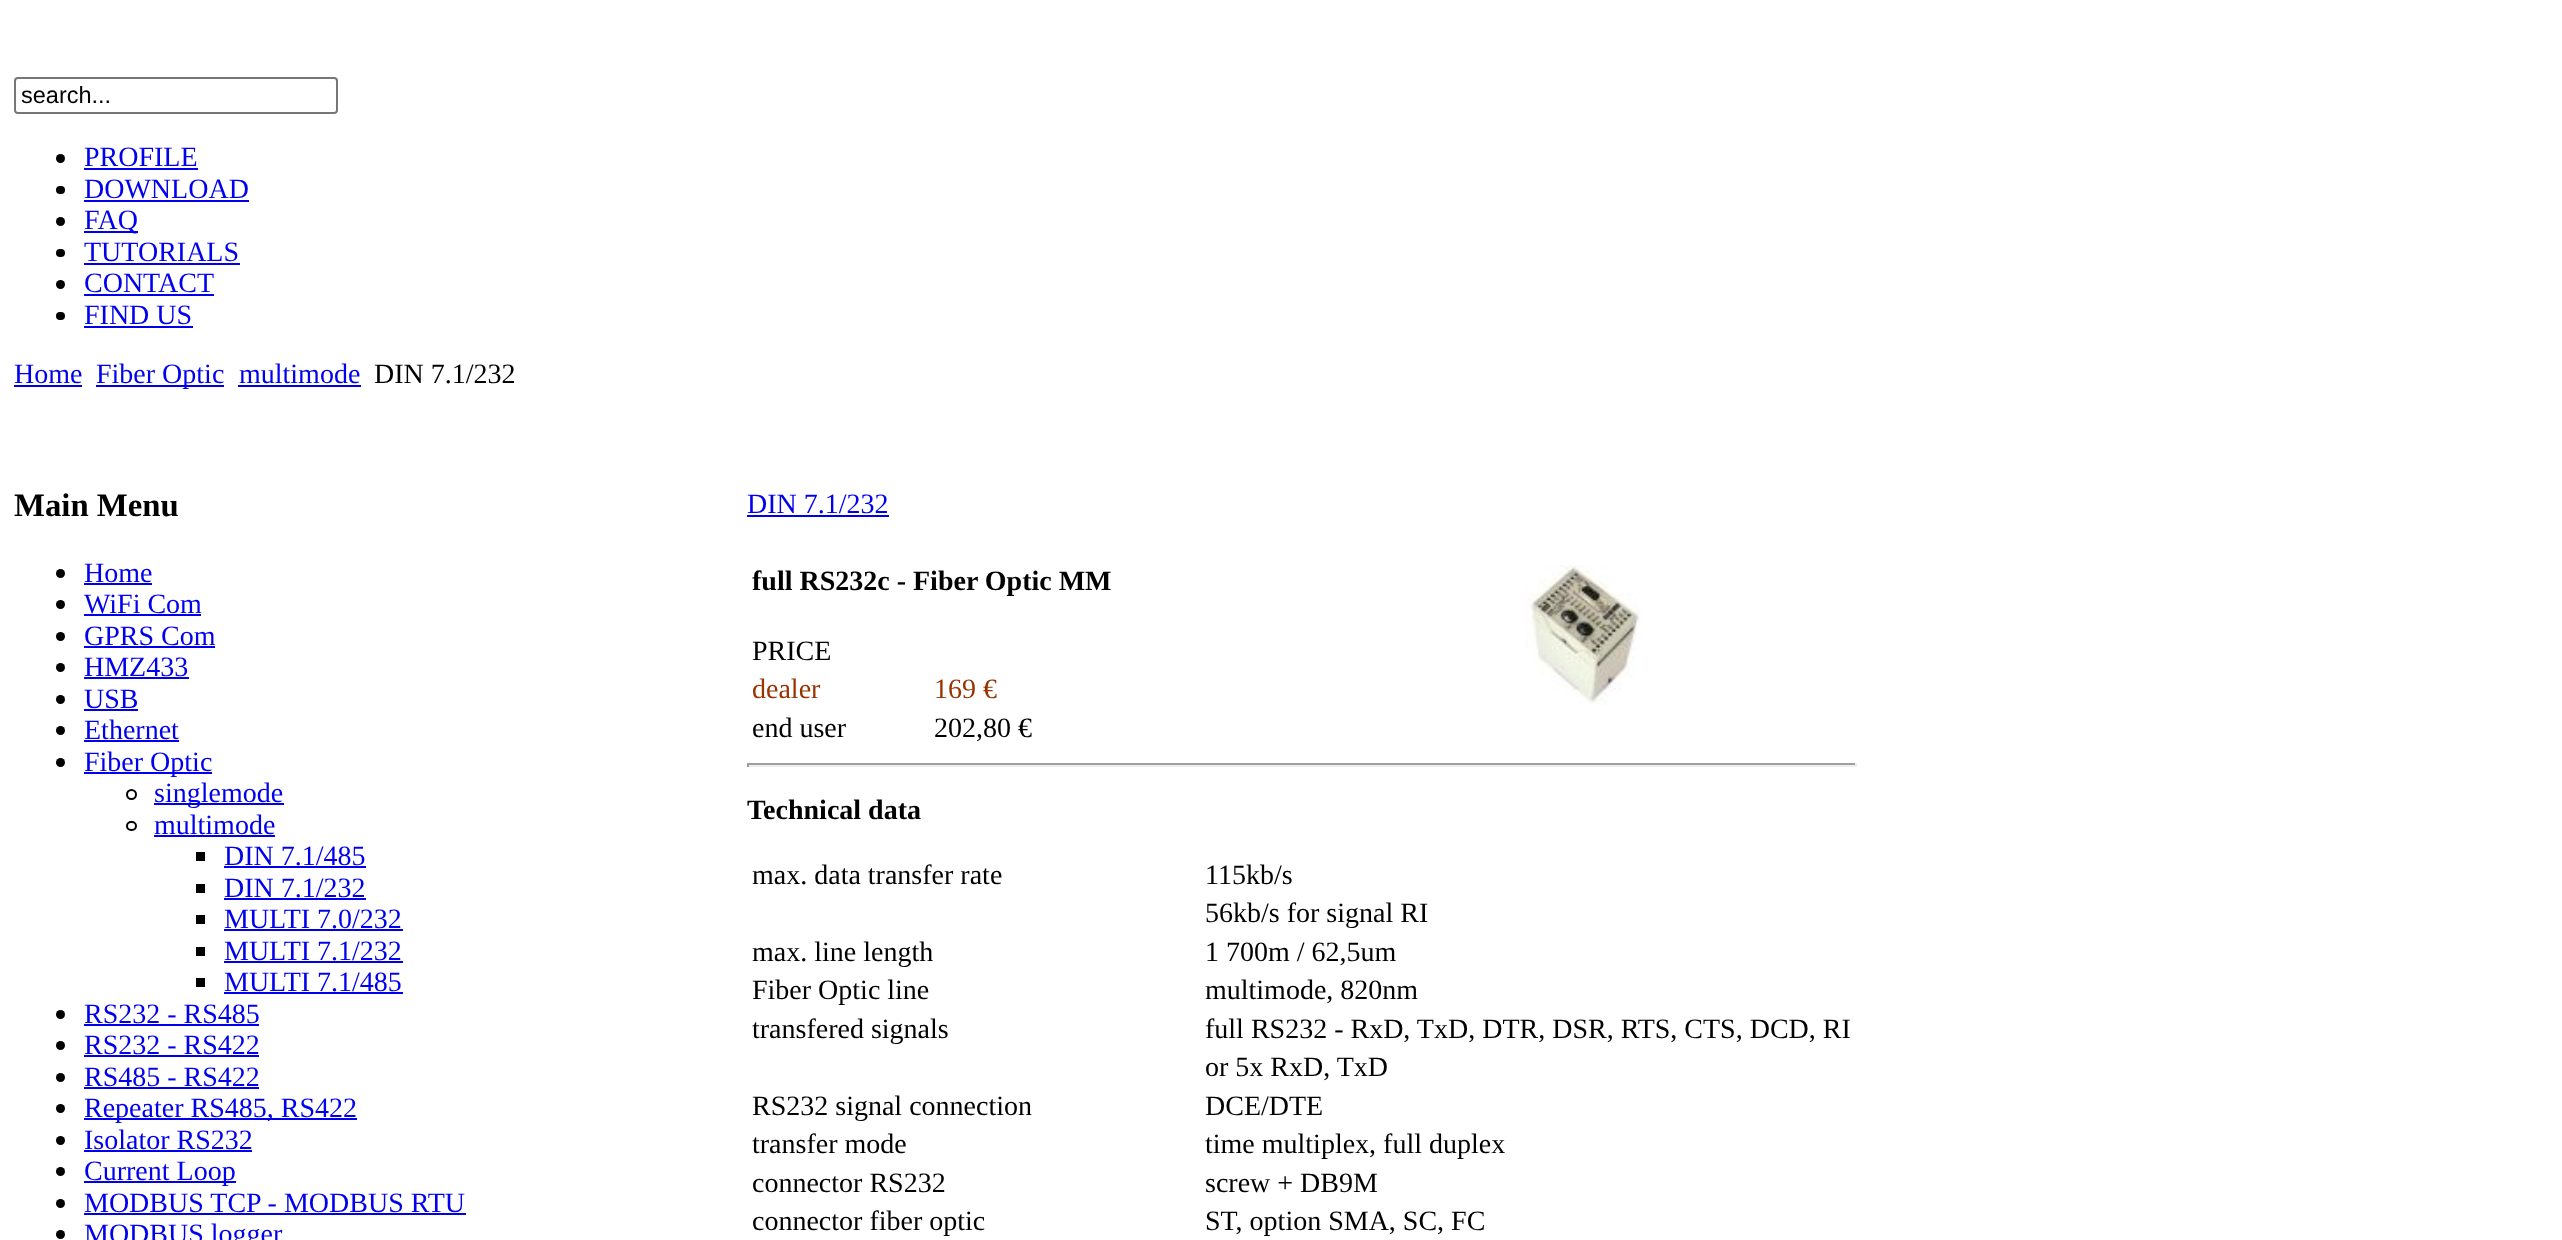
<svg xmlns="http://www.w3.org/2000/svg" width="2562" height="1240">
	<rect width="100%" height="100%" fill="#FFFFFF" />
	<rect x="15" y="78" width="322" height="35" rx="3" fill="none" stroke="#767676" stroke-width="2" />
	<text x="21" y="103" font-family="Liberation Sans" font-size="23.5" fill="#000000">search...</text>
	<circle cx="60.5" cy="158.5" r="4.5" fill="#000000" />
	<text x="84" y="166" font-family="Liberation Serif" font-size="28" fill="#0000EE">PROFILE</text>
	<rect x="84" y="168" width="114" height="2" fill="#0000EE" />
	<rect x="56" y="186" width="9" height="8" rx="4" fill="#000000" />
	<text x="84" y="198" font-family="Liberation Serif" font-size="28" fill="#0000EE">DOWNLOAD</text>
	<rect x="84" y="200" width="165" height="2" fill="#0000EE" />
	<circle cx="60.5" cy="221.5" r="4.5" fill="#000000" />
	<rect x="84" y="231" width="54" height="2" fill="#0000EE" />
	<text x="84" y="229" font-family="Liberation Serif" font-size="28" fill="#0000EE">FAQ</text>
	<rect x="56" y="249" width="9" height="8" rx="4" fill="#000000" />
	<text x="84" y="261" font-family="Liberation Serif" font-size="28" fill="#0000EE">TUTORIALS</text>
	<rect x="84" y="263" width="156" height="2" fill="#0000EE" />
	<circle cx="60.5" cy="284.5" r="4.5" fill="#000000" />
	<text x="84" y="292" font-family="Liberation Serif" font-size="28" fill="#0000EE">CONTACT</text>
	<rect x="84" y="294" width="130" height="2" fill="#0000EE" />
	<rect x="56" y="312" width="9" height="8" rx="4" fill="#000000" />
	<text x="84" y="324" font-family="Liberation Serif" font-size="28" fill="#0000EE">FIND US</text>
	<rect x="84" y="326" width="109" height="2" fill="#0000EE" />
	<text x="14" y="383" font-family="Liberation Serif" font-size="28" fill="#0000EE">Home</text>
	<rect x="14" y="385" width="68" height="2" fill="#0000EE" />
	<rect x="96" y="385" width="128" height="2" fill="#0000EE" />
	<g font-family="Liberation Serif" font-size="28" fill="#0000EE">
		<text x="96" y="383">Fiber Optic</text>
		<text x="239" y="383">multimode</text>
	</g>
	<rect x="238" y="385" width="123" height="2" fill="#0000EE" />
	<text x="374" y="383" font-family="Liberation Serif" font-size="28" fill="#000000">DIN 7.1/232</text>
	<text x="14" y="516" font-family="Liberation Serif" font-size="32.75" font-weight="700" fill="#000000">Main Menu</text>
	<circle cx="60.5" cy="573.5" r="4.5" fill="#000000" />
	<text x="84" y="582" font-family="Liberation Serif" font-size="28" fill="#0000EE">Home</text>
	<rect x="84" y="583" width="68" height="2" fill="#0000EE" />
	<circle cx="60.5" cy="604.5" r="4.5" fill="#000000" />
	<text x="84" y="613" font-family="Liberation Serif" font-size="28" fill="#0000EE">WiFi Com</text>
	<rect x="84" y="614" width="117" height="2" fill="#0000EE" />
	<circle cx="60.5" cy="636.5" r="4.5" fill="#000000" />
	<text x="84" y="645" font-family="Liberation Serif" font-size="28" fill="#0000EE">GPRS Com</text>
	<rect x="84" y="646" width="131" height="2" fill="#0000EE" />
	<circle cx="60.5" cy="667.5" r="4.5" fill="#000000" />
	<text x="84" y="676" font-family="Liberation Serif" font-size="28" fill="#0000EE">HMZ433</text>
	<rect x="84" y="677" width="105" height="2" fill="#0000EE" />
	<circle cx="60.5" cy="699.5" r="4.5" fill="#000000" />
	<text x="84" y="708" font-family="Liberation Serif" font-size="28" fill="#0000EE">USB</text>
	<rect x="84" y="709" width="54" height="2" fill="#0000EE" />
	<circle cx="60.5" cy="730.5" r="4.5" fill="#000000" />
	<text x="84" y="739" font-family="Liberation Serif" font-size="28" fill="#0000EE">Ethernet</text>
	<rect x="84" y="740" width="95" height="2" fill="#0000EE" />
	<circle cx="60.5" cy="762.5" r="4.5" fill="#000000" />
	<rect x="84" y="772" width="128" height="2" fill="#0000EE" />
	<text x="84" y="771" font-family="Liberation Serif" font-size="28" fill="#0000EE">Fiber Optic</text>
	<circle cx="131.5" cy="794.5" r="4.5" fill="none" stroke="#000000" stroke-width="2" />
	<rect x="154" y="803" width="130" height="2" fill="#0000EE" />
	<text x="154" y="802" font-family="Liberation Serif" font-size="28" fill="#0000EE">singlemode</text>
	<rect x="127" y="822" width="9" height="8" rx="4" fill="none" stroke="#000000" stroke-width="2" />
	<text x="154" y="834" font-family="Liberation Serif" font-size="28" fill="#0000EE">multimode</text>
	<rect x="154" y="835" width="121" height="2" fill="#0000EE" />
	<rect x="196" y="852" width="9" height="9" fill="#000000" />
	<text x="224" y="865" font-family="Liberation Serif" font-size="28" fill="#0000EE">DIN 7.1/485</text>
	<rect x="224" y="866" width="142" height="2" fill="#0000EE" />
	<rect x="196" y="884" width="9" height="9" fill="#000000" />
	<text x="224" y="897" font-family="Liberation Serif" font-size="28" fill="#0000EE">DIN 7.1/232</text>
	<rect x="224" y="898" width="142" height="2" fill="#0000EE" />
	<rect x="196" y="915" width="9" height="9" fill="#000000" />
	<text x="224" y="928" font-family="Liberation Serif" font-size="28" fill="#0000EE">MULTI 7.0/232</text>
	<rect x="224" y="929" width="179" height="2" fill="#0000EE" />
	<rect x="196" y="947" width="9" height="9" fill="#000000" />
	<text x="224" y="960" font-family="Liberation Serif" font-size="28" fill="#0000EE">MULTI 7.1/232</text>
	<rect x="224" y="961" width="179" height="2" fill="#0000EE" />
	<rect x="196" y="978" width="9" height="9" fill="#000000" />
	<text x="224" y="991" font-family="Liberation Serif" font-size="28" fill="#0000EE">MULTI 7.1/485</text>
	<rect x="224" y="992" width="179" height="2" fill="#0000EE" />
	<circle cx="60.5" cy="1014.5" r="4.5" fill="#000000" />
	<text x="84" y="1023" font-family="Liberation Serif" font-size="28" fill="#0000EE">RS232 - RS485</text>
	<rect x="84" y="1024" width="175" height="2" fill="#0000EE" />
	<circle cx="60.5" cy="1045.5" r="4.5" fill="#000000" />
	<text x="84" y="1054" font-family="Liberation Serif" font-size="28" fill="#0000EE">RS232 - RS422</text>
	<rect x="84" y="1055" width="175" height="2" fill="#0000EE" />
	<circle cx="60.5" cy="1077.5" r="4.5" fill="#000000" />
	<text x="84" y="1086" font-family="Liberation Serif" font-size="28" fill="#0000EE">RS485 - RS422</text>
	<rect x="84" y="1087" width="175" height="2" fill="#0000EE" />
	<circle cx="60.5" cy="1108.5" r="4.5" fill="#000000" />
	<rect x="84" y="1118" width="273" height="2" fill="#0000EE" />
	<text x="84" y="1117" font-family="Liberation Serif" font-size="28" fill="#0000EE">Repeater RS485, RS422</text>
	<circle cx="60.5" cy="1140.5" r="4.5" fill="#000000" />
	<text x="84" y="1149" font-family="Liberation Serif" font-size="28" fill="#0000EE">Isolator RS232</text>
	<rect x="84" y="1150" width="168" height="2" fill="#0000EE" />
	<circle cx="60.5" cy="1171.5" r="4.5" fill="#000000" />
	<rect x="84" y="1181" width="152" height="2" fill="#0000EE" />
	<text x="84" y="1180" font-family="Liberation Serif" font-size="28" fill="#0000EE">Current Loop</text>
	<circle cx="60.5" cy="1203.5" r="4.5" fill="#000000" />
	<text x="84" y="1212" font-family="Liberation Serif" font-size="28" fill="#0000EE">MODBUS TCP - MODBUS RTU</text>
	<rect x="84" y="1213" width="382" height="2" fill="#0000EE" />
	<circle cx="60.5" cy="1234.5" r="4.5" fill="#000000" />
	<g font-family="Liberation Serif" font-size="28" fill="#0000EE">
		<text x="84" y="1243">MODBUS logger</text>
		<text x="747" y="513">DIN 7.1/232</text>
	</g>
	<rect x="747" y="515" width="142" height="2" fill="#0000EE" />
	<text x="752" y="590" font-family="Liberation Serif" font-size="28" font-weight="700" fill="#000000">full RS232c - Fiber Optic MM</text>
	<image x="1524" y="565" width="116" height="140" href="assets/img1.png" />
	<text x="752" y="660" font-family="Liberation Serif" font-size="28" fill="#000000">PRICE</text>
	<g font-family="Liberation Serif" font-size="28" fill="#993300">
		<text x="752" y="698">dealer</text>
		<text x="934" y="698">169 €</text>
	</g>
	<g font-family="Liberation Serif" font-size="28" fill="#000000">
		<text x="752" y="737">end user</text>
		<text x="934" y="737">202,80 €</text>
	</g>
	<rect x="747" y="763" width="1110" height="2" fill="#9F9F9F" />
	<rect x="1855" y="763" width="2" height="4" fill="#EEEEEE" />
	<rect x="747" y="765" width="1110" height="2" fill="#EEEEEE" />
	<rect x="747" y="763" width="2" height="4" fill="#9F9F9F" />
	<text x="747" y="819" font-family="Liberation Serif" font-size="28" font-weight="700" fill="#000000">Technical data</text>
	<g font-family="Liberation Serif" font-size="28" fill="#000000">
		<text x="752" y="884">max. data transfer rate</text>
		<text x="1205" y="884">115kb/s</text>
		<text x="1205" y="922">56kb/s for signal RI</text>
		<text x="752" y="961">max. line length</text>
		<text x="1205" y="961">1 700m / 62,5um</text>
		<text x="752" y="999">Fiber Optic line</text>
		<text x="1205" y="999">multimode, 820nm</text>
		<text x="752" y="1038">transfered signals</text>
		<text x="1205" y="1038">full RS232 - RxD, TxD, DTR, DSR, RTS, CTS, DCD, RI</text>
		<text x="1205" y="1076">or 5x RxD, TxD</text>
		<text x="752" y="1115">RS232 signal connection</text>
		<text x="1205" y="1115">DCE/DTE</text>
		<text x="752" y="1153">transfer mode</text>
		<text x="1205" y="1153">time multiplex, full duplex</text>
		<text x="752" y="1192">connector RS232</text>
		<text x="1205" y="1192">screw + DB9M</text>
		<text x="752" y="1230">connector fiber optic</text>
		<text x="1205" y="1230">ST, option SMA, SC, FC</text>
	</g>
</svg>
